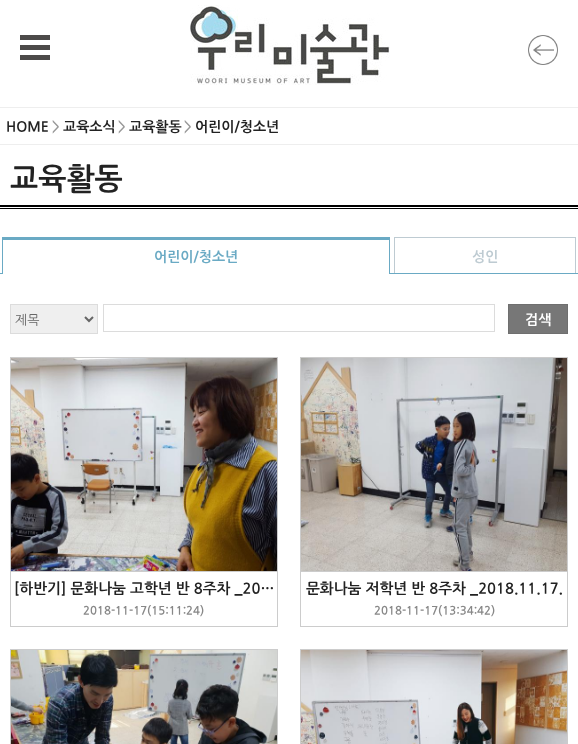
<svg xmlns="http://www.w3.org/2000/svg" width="578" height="744">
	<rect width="100%" height="100%" fill="#FFFFFF" />
	<rect x="20" y="45" width="30" height="5" fill="#4C4A49" />
	<rect x="20" y="35" width="30" height="5" fill="#4C4A49" />
	<rect x="20" y="55" width="30" height="5" fill="#4C4A49" />
	<image x="190" y="5" width="200" height="80" href="assets/img1.png" />
	<image x="528" y="35" width="30" height="30" href="assets/img2.png" />
	<rect x="0" y="107" width="578" height="1" fill="#EEEEEE" />
	<rect x="0" y="144" width="578" height="1" fill="#EEEEEE" />
	<text x="6" y="131" font-family="NanumGothic" font-size="14" font-weight="700" fill="#222222">HOME</text>
	<text x="52" y="131" font-family="NanumGothic" font-size="14" font-weight="700" fill="#999999">&gt;</text>
	<text x="63" y="131" font-family="NanumGothic" font-size="14" font-weight="700" fill="#222222">교육소식</text>
	<text x="118" y="131" font-family="NanumGothic" font-size="14" font-weight="700" fill="#999999">&gt;</text>
	<text x="129" y="131" font-family="NanumGothic" font-size="14" font-weight="700" fill="#222222">교육활동</text>
	<text x="184" y="131" font-family="NanumGothic" font-size="14" font-weight="700" fill="#999999">&gt;</text>
	<text x="195" y="131" font-family="NanumGothic" font-size="14" font-weight="700" fill="#222222">어린이/청소년</text>
	<rect x="0" y="205" width="578" height="2" fill="#000000" />
	<text x="10" y="188" font-family="NanumGothic" font-size="30" font-weight="700" fill="#222222">교육활동</text>
	<rect x="0" y="208" width="578" height="1" fill="#000000" />
	<rect x="0" y="273" width="392" height="1" fill="#6AAAC4" />
	<rect x="3" y="273" width="386" height="1" fill="#FFFFFF" />
	<rect x="3" y="238" width="386" height="2" fill="#6AAAC4" />
	<rect x="2" y="237" width="388" height="1" fill="#6AAAC4" />
	<rect x="389" y="237" width="1" height="37" fill="#6AAAC4" />
	<rect x="2" y="237" width="1" height="37" fill="#6AAAC4" />
	<text x="154" y="261" font-family="NanumGothic" font-size="14" font-weight="700" fill="#6AAAC4">어린이/청소년</text>
	<rect x="394" y="237" width="182" height="1" fill="#BECBD2" />
	<rect x="575" y="237" width="1" height="37" fill="#BECBD2" />
	<rect x="394" y="237" width="1" height="37" fill="#BECBD2" />
	<text x="472" y="261" font-family="NanumGothic" font-size="14" font-weight="700" fill="#BECBD2">성인</text>
	<rect x="392" y="273" width="186" height="1" fill="#6AAAC4" />
	<rect x="10.5" y="304.5" width="87" height="29" fill="#EFEFEF" stroke="#DCDCDC" />
	<path d="M85 317L89 321L93 317" fill="none" stroke="#666666" stroke-width="2" />
	<text x="15" y="324" font-family="NanumGothic" font-size="13" fill="#666666">제목</text>
	<rect x="103.5" y="304.5" width="391" height="27" fill="none" stroke="#DCDCDC" />
	<rect x="508.5" y="304.5" width="59" height="29" fill="#777777" stroke="#6F6F6F" />
	<text x="525" y="324" font-family="NanumGothic" font-size="14" font-weight="700" fill="#FFFFFF">검색</text>
	<rect x="10.5" y="357.5" width="267" height="269" fill="none" stroke="#CCCCCC" />
	<image x="11" y="358" width="266" height="213" href="assets/img3.png" />
	<rect x="11" y="571" width="266" height="1" fill="#CCCCCC" />
	<text x="14" y="593" font-family="NanumGothic" font-size="14.75" font-weight="700" fill="#222222">[하반기] 문화나눔 고학년 반 8주차 _20…</text>
	<text x="83" y="614" font-family="NanumGothic" font-size="11.5" font-weight="700" fill="#888888">2018-11-17(15:11:24)</text>
	<rect x="300.5" y="357.5" width="267" height="269" fill="none" stroke="#CCCCCC" />
	<image x="301" y="358" width="266" height="213" href="assets/img4.png" />
	<rect x="301" y="571" width="266" height="1" fill="#CCCCCC" />
	<text x="306" y="593" font-family="NanumGothic" font-size="14.75" font-weight="700" fill="#222222">문화나눔 저학년 반 8주차 _2018.11.17.</text>
	<text x="374" y="614" font-family="NanumGothic" font-size="11.5" font-weight="700" fill="#888888">2018-11-17(13:34:42)</text>
	<rect x="10.5" y="649.5" width="267" height="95" fill="none" stroke="#CCCCCC" />
	<image x="11" y="650" width="266" height="94" href="assets/img5.png" />
	<rect x="300.5" y="649.5" width="267" height="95" fill="none" stroke="#CCCCCC" />
	<image x="301" y="650" width="266" height="94" href="assets/img6.png" />
</svg>
